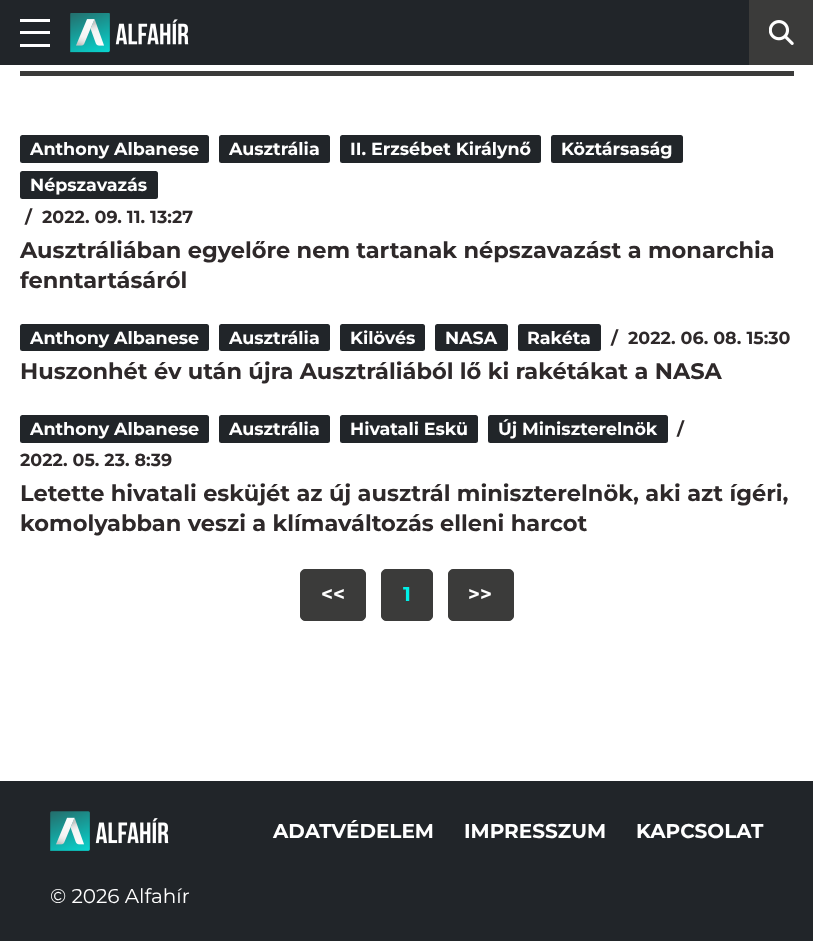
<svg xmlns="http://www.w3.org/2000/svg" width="813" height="941">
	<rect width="100%" height="100%" fill="#FFFFFF" />
	<rect x="0" y="0" width="749" height="65" fill="#212529" />
	<rect x="20" y="19" width="30" height="3" fill="#FFFFFF" />
	<rect x="20" y="31" width="30" height="3" fill="#FFFFFF" />
	<rect x="20" y="44" width="30" height="3" fill="#FFFFFF" />
	<image x="70" y="13" width="119" height="40" href="assets/img1.png" />
	<rect x="749" y="0" width="64" height="65" fill="#3B3B3A" />
	<image x="769" y="20" width="25" height="25" href="assets/img2.png" />
	<rect x="20" y="71" width="774" height="5" fill="#3B3B3A" />
	<rect x="20" y="135" width="189" height="28" rx="2.5" fill="#212529" />
	<text x="30" y="155" font-family="Montserrat" font-size="17.5" font-weight="700" fill="#FFFFFF">Anthony Albanese</text>
	<rect x="219" y="135" width="111" height="28" rx="2.5" fill="#212529" />
	<text x="229" y="155" font-family="Montserrat" font-size="17.5" font-weight="700" fill="#FFFFFF">Ausztrália</text>
	<rect x="340" y="135" width="201" height="28" rx="2.5" fill="#212529" />
	<text x="350" y="155" font-family="Montserrat" font-size="17.5" font-weight="700" fill="#FFFFFF">II. Erzsébet Királynő</text>
	<rect x="551" y="135" width="132" height="28" rx="2.5" fill="#212529" />
	<text x="561" y="155" font-family="Montserrat" font-size="17.5" font-weight="700" fill="#FFFFFF">Köztársaság</text>
	<rect x="20" y="171" width="138" height="28" rx="2.5" fill="#212529" />
	<text x="30" y="191" font-family="Montserrat" font-size="17.5" font-weight="700" fill="#FFFFFF">Népszavazás</text>
	<g font-family="Montserrat" font-size="17.5" font-weight="700" fill="#2E292A">
		<text x="25" y="223">/</text>
		<text x="42" y="223">2022. 09. 11. 13:27</text>
	</g>
	<g font-family="Montserrat" font-size="22.5" font-weight="700" fill="#2E292A">
		<text x="20" y="258">Ausztráliában egyelőre nem tartanak népszavazást a monarchia</text>
		<text x="20" y="288">fenntartásáról</text>
	</g>
	<rect x="20" y="324" width="189" height="27" rx="2.5" fill="#212529" />
	<text x="30" y="344" font-family="Montserrat" font-size="17.5" font-weight="700" fill="#FFFFFF">Anthony Albanese</text>
	<rect x="219" y="324" width="111" height="27" rx="2.5" fill="#212529" />
	<text x="229" y="344" font-family="Montserrat" font-size="17.5" font-weight="700" fill="#FFFFFF">Ausztrália</text>
	<rect x="340" y="324" width="85" height="27" rx="2.5" fill="#212529" />
	<text x="350" y="344" font-family="Montserrat" font-size="17.5" font-weight="700" fill="#FFFFFF">Kilövés</text>
	<rect x="435" y="324" width="73" height="27" rx="2.5" fill="#212529" />
	<text x="445" y="344" font-family="Montserrat" font-size="17.5" font-weight="700" fill="#FFFFFF">NASA</text>
	<rect x="518" y="324" width="83" height="27" rx="2.5" fill="#212529" />
	<text x="527" y="344" font-family="Montserrat" font-size="17.5" font-weight="700" fill="#FFFFFF">Rakéta</text>
	<g font-family="Montserrat" font-size="17.5" font-weight="700" fill="#2E292A">
		<text x="611" y="344">/</text>
		<text x="628" y="344">2022. 06. 08. 15:30</text>
	</g>
	<text x="20" y="379" font-family="Montserrat" font-size="22.5" font-weight="700" fill="#2E292A">Huszonhét év után újra Ausztráliából lő ki rakétákat a NASA</text>
	<rect x="20" y="415" width="189" height="28" rx="2.5" fill="#212529" />
	<text x="30" y="435" font-family="Montserrat" font-size="17.5" font-weight="700" fill="#FFFFFF">Anthony Albanese</text>
	<rect x="219" y="415" width="111" height="28" rx="2.5" fill="#212529" />
	<text x="229" y="435" font-family="Montserrat" font-size="17.5" font-weight="700" fill="#FFFFFF">Ausztrália</text>
	<rect x="340" y="415" width="138" height="28" rx="2.5" fill="#212529" />
	<text x="350" y="435" font-family="Montserrat" font-size="17.5" font-weight="700" fill="#FFFFFF">Hivatali Eskü</text>
	<rect x="488" y="415" width="180" height="28" rx="2.5" fill="#212529" />
	<text x="498" y="435" font-family="Montserrat" font-size="17.5" font-weight="700" fill="#FFFFFF">Új Miniszterelnök</text>
	<g font-family="Montserrat" font-size="17.5" font-weight="700" fill="#2E292A">
		<text x="677" y="435">/</text>
		<text x="20" y="466">2022. 05. 23. 8:39</text>
	</g>
	<g font-family="Montserrat" font-size="22.5" font-weight="700" fill="#2E292A">
		<text x="20" y="501">Letette hivatali esküjét az új ausztrál miniszterelnök, aki azt ígéri,</text>
		<text x="20" y="531">komolyabban veszi a klímaváltozás elleni harcot</text>
	</g>
	<rect x="300.5" y="569.5" width="65" height="51" rx="4.5" fill="#3B3B3A" stroke="#3B3B3A" />
	<text x="321" y="601" font-family="Montserrat" font-size="20" font-weight="700" fill="#FFFFFF">&lt;&lt;</text>
	<rect x="381.5" y="569.5" width="51" height="51" rx="4.5" fill="#3B3B3A" stroke="#3B3B3A" />
	<text x="403" y="601" font-family="Montserrat" font-size="20" font-weight="700" fill="#00F0E8">1</text>
	<rect x="448.5" y="569.5" width="65" height="51" rx="4.5" fill="#3B3B3A" stroke="#3B3B3A" />
	<text x="468" y="601" font-family="Montserrat" font-size="20" font-weight="700" fill="#FFFFFF">&gt;&gt;</text>
	<rect x="0" y="781" width="813" height="160" fill="#212529" />
	<image x="50" y="811" width="119" height="40" href="assets/img3.png" />
	<g font-family="Montserrat" font-size="20" font-weight="700" fill="#FFFFFF">
		<text x="273" y="838">ADATVÉDELEM</text>
		<text x="464" y="838">IMPRESSZUM</text>
		<text x="636" y="838">KAPCSOLAT</text>
	</g>
	<text x="50" y="903" font-family="Montserrat" font-size="20" fill="#FFFFFF">© 2026 Alfahír</text>
</svg>
